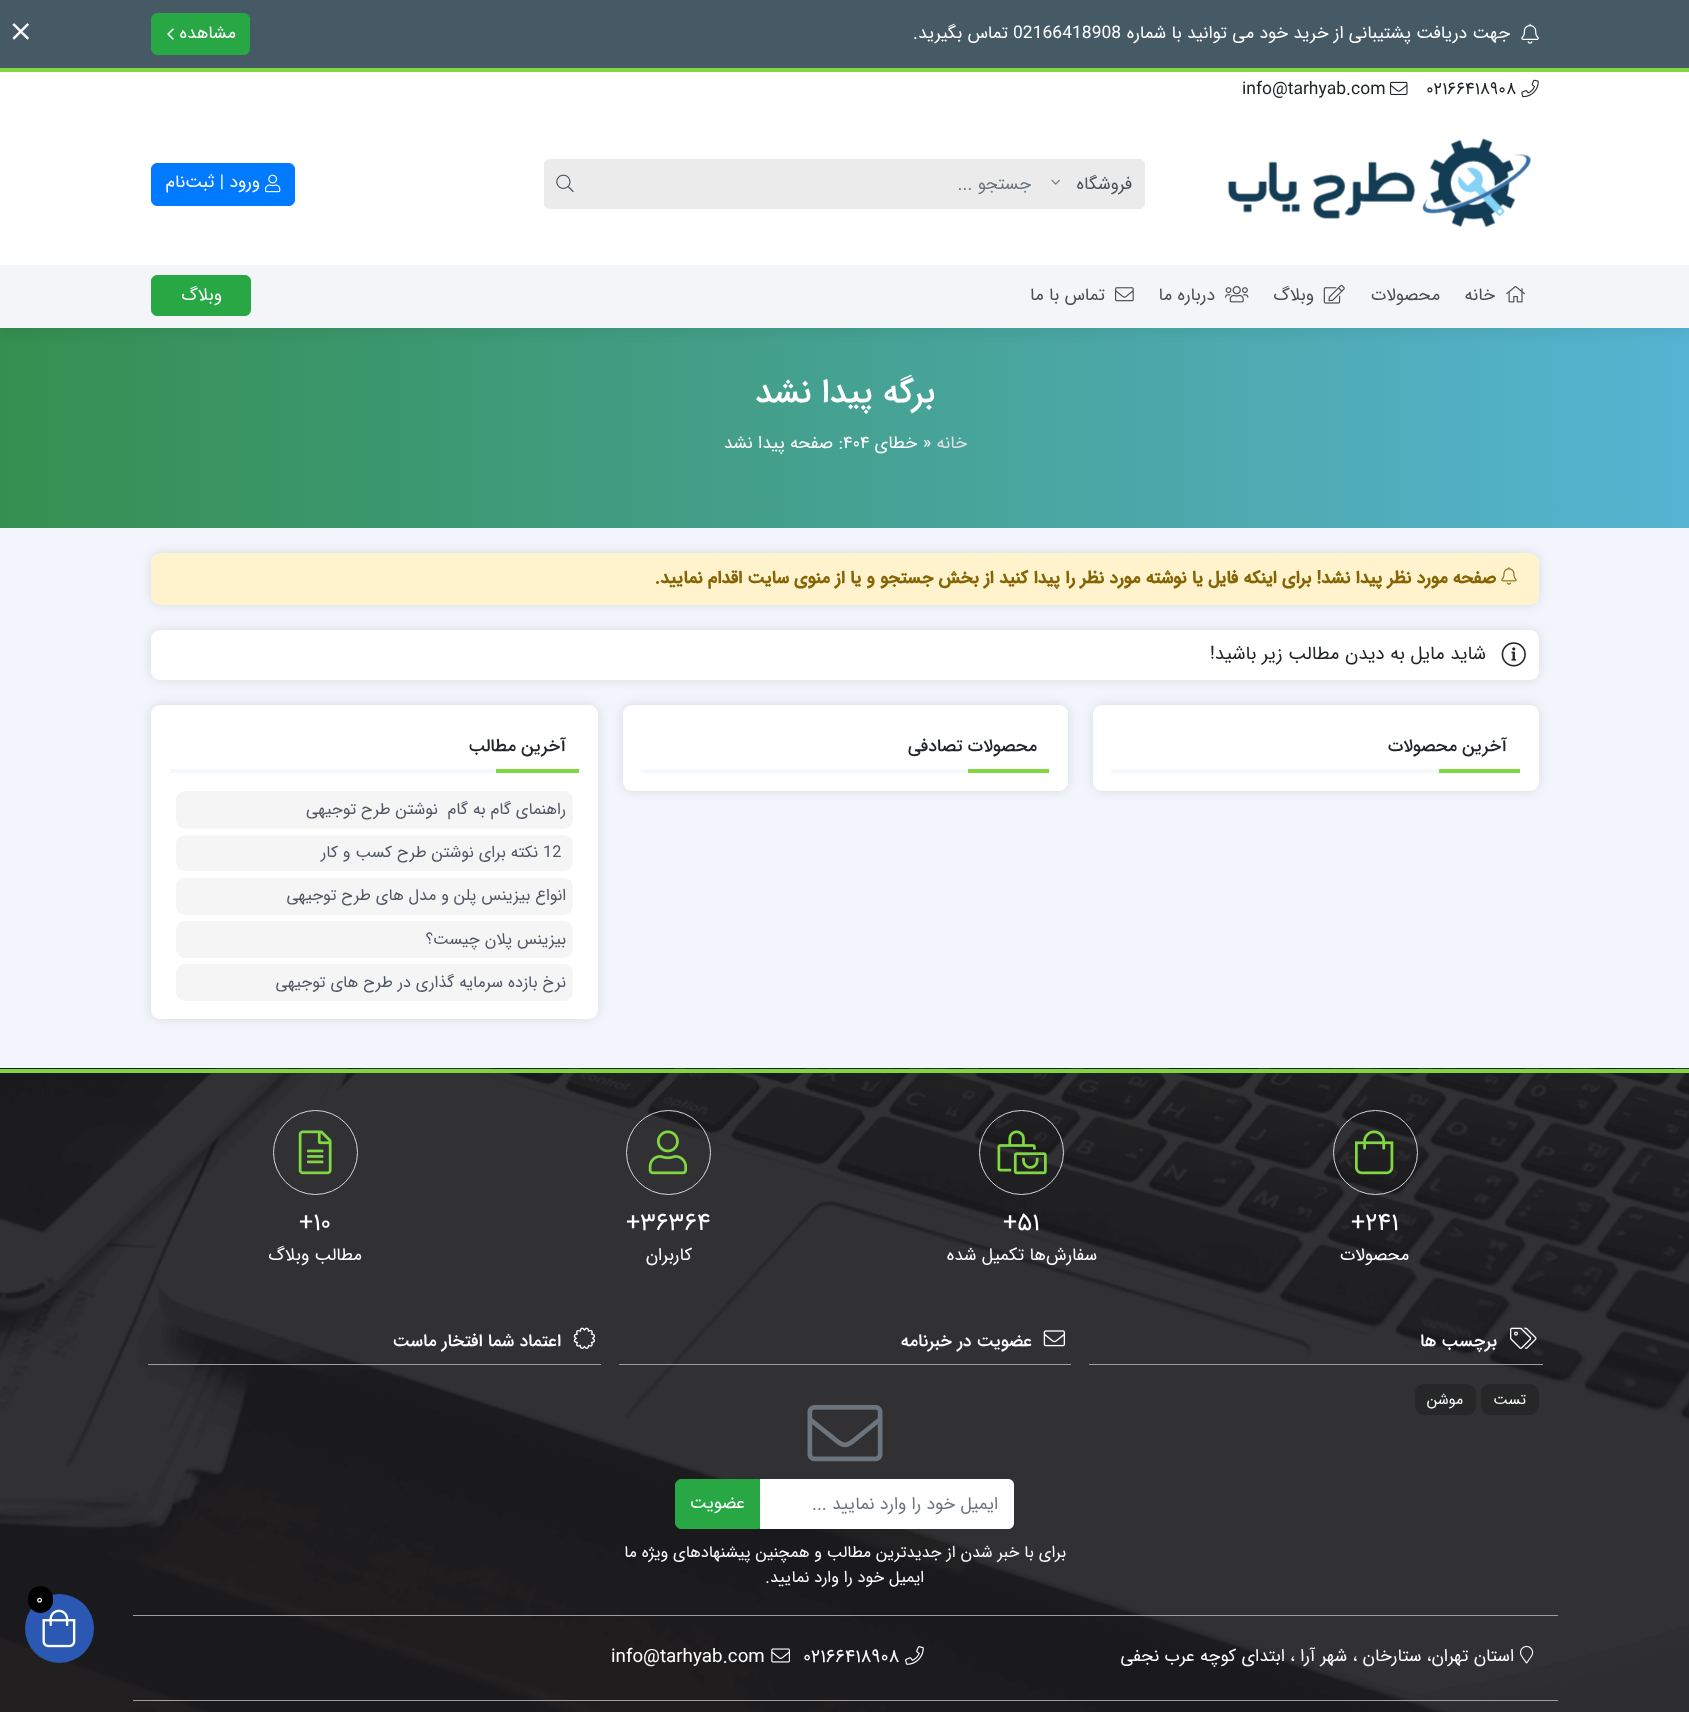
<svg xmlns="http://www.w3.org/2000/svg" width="1689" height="1712">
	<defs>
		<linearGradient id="g1" gradientUnits="userSpaceOnUse" x1="0" y1="428" x2="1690" y2="427"><stop offset="0" stop-color="#348F50" /><stop offset="1" stop-color="#56B4D3" /></linearGradient>
	</defs>
	<rect width="100%" height="100%" fill="#F2F6FC" />
	<rect x="0" y="0" width="1689" height="68" fill="#455A64" />
	<image x="1521" y="23" width="18" height="21" href="assets/img1.png" />
	<text x="1510" y="38" font-family="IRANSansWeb" font-size="17.5" direction="rtl" fill="#FFFFFF">جهت دریافت پشتیبانی از خرید خود می توانید با شماره</text>
	<text x="1013" y="38" font-family="IRANSansWeb" font-size="17.5" fill="#FFFFFF">02166418908</text>
	<text x="1008" y="38" font-family="IRANSansWeb" font-size="17.5" direction="rtl" fill="#FFFFFF">تماس بگیرید.</text>
	<rect x="151.5" y="13.5" width="98" height="41" rx="5.5" fill="#28A745" stroke="#28A745" />
	<text x="236" y="38" font-family="IRANSansWeb" font-size="17.5" direction="rtl" fill="#FFFFFF">مشاهده</text>
	<image x="167" y="28" width="7" height="12" href="assets/img2.png" />
	<image x="12" y="23" width="17" height="17" href="assets/img3.png" />
	<rect x="0" y="72" width="1689" height="193" fill="#FFFFFF" />
	<rect x="0" y="68" width="1689" height="4" fill="#81D742" />
	<image x="1521" y="79" width="18" height="19" href="assets/img4.png" />
	<text x="1426" y="94" font-family="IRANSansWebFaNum" font-size="17.5" fill="#212529">02166418908</text>
	<image x="1390" y="81" width="18" height="14" href="assets/img5.png" />
	<text x="1242" y="94" font-family="IRANSansWebFaNum" font-size="17.5" fill="#212529">info@tarhyab.com</text>
	<image x="1227" y="138" width="304" height="90" href="assets/img6.png" />
	<path d="M1051 159H1139C1142.5 159 1145 161.5 1145 165V203C1145 206.5 1142.5 209 1139 209H1051Z" fill="#EBEBEB" />
	<text x="1132" y="189" font-family="IRANSansWeb" font-size="17.5" direction="rtl" fill="#495057">فروشگاه</text>
	<image x="1051" y="179" width="9" height="6" href="assets/img7.png" />
	<rect x="594" y="159" width="457" height="50" fill="#EBEBEB" />
	<text x="1031" y="189" font-family="IRANSansWeb" font-size="17.5" direction="rtl" fill="#6C757D">جستجو ...</text>
	<path d="M550 159H594V209H550C546.5 209 544 206.5 544 203V165C544 161.5 546.5 159 550 159Z" fill="#EBEBEB" />
	<image x="556" y="174" width="18" height="19" href="assets/img8.png" />
	<rect x="151.5" y="163.5" width="143" height="42" rx="5.5" fill="#007BFF" stroke="#007BFF" />
	<image x="265" y="174" width="16" height="19" href="assets/img9.png" />
	<text x="260" y="187" font-family="IRANSansWeb" font-size="17.5" direction="rtl" fill="#FFFFFF">ورود | ثبت‌نام</text>
	<rect x="0" y="328" width="1689" height="200" fill="url(#g1)" />
	<rect x="0" y="274" width="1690" height="62" fill="#000000" fill-opacity="0.04" filter="blur(5px)" />
	<rect x="0" y="265" width="1689" height="63" fill="#F4F5F9" />
	<image x="1506" y="286" width="19" height="17" href="assets/img10.png" />
	<g font-family="IRANSansWeb" font-size="17.5" direction="rtl" fill="#4D4D4D">
		<text x="1495" y="300">خانه</text>
		<text x="1440" y="300">محصولات</text>
	</g>
	<image x="1323" y="284" width="22" height="20" href="assets/img11.png" />
	<text x="1314" y="300" font-family="IRANSansWeb" font-size="17.5" direction="rtl" fill="#4D4D4D">وبلاگ</text>
	<image x="1225" y="286" width="24" height="17" href="assets/img12.png" />
	<text x="1215" y="300" font-family="IRANSansWeb" font-size="17.5" direction="rtl" fill="#4D4D4D">درباره ما</text>
	<image x="1115" y="287" width="19" height="15" href="assets/img13.png" />
	<text x="1105" y="300" font-family="IRANSansWeb" font-size="17.5" direction="rtl" fill="#4D4D4D">تماس با ما</text>
	<rect x="151.5" y="275.5" width="99" height="40" rx="5.5" fill="#28A745" stroke="#28A745" />
	<text x="222" y="300" font-family="IRANSansWeb" font-size="17.5" direction="rtl" fill="#FFFFFF">وبلاگ</text>
	<text x="935" y="402" font-family="IRANSansWebFaNum" font-size="33.75" font-weight="500" direction="rtl" fill="#FFFFFF">برگه پیدا نشد</text>
	<text x="967" y="448" font-family="IRANSansWebFaNum" font-size="17.5" direction="rtl" fill="#E0E0E0">خانه</text>
	<text x="923" y="448" font-family="IRANSansWebFaNum" font-size="17.5" fill="#FFFFFF">»</text>
	<text x="917" y="448" font-family="IRANSansWebFaNum" font-size="17.5" direction="rtl" fill="#FFFFFF">خطای</text>
	<text x="843" y="448" font-family="IRANSansWebFaNum" font-size="17.5" fill="#FFFFFF">404</text>
	<text x="843" y="448" font-family="IRANSansWebFaNum" font-size="17.5" direction="rtl" fill="#FFFFFF">: صفحه پیدا نشد</text>
	<rect x="151" y="553" width="1388" height="52" rx="9" fill="#000000" fill-opacity="0.1" filter="blur(6px)" />
	<rect x="151" y="553" width="1388" height="52" rx="9" fill="#FFF3CD" />
	<image x="1501" y="567" width="16" height="18" href="assets/img14.png" />
	<text x="1496" y="583" font-family="IRANSansWebFaNum" font-size="17.5" font-weight="700" direction="rtl" fill="#856404">صفحه مورد نظر پیدا نشد! برای اینکه فایل یا نوشته مورد نظر را پیدا کنید از بخش جستجو و یا از منوی سایت اقدام نمایید.</text>
	<rect x="151" y="630" width="1388" height="50" rx="9" fill="#000000" fill-opacity="0.1" filter="blur(6px)" />
	<rect x="151" y="630" width="1388" height="50" rx="9" fill="#FFFFFF" />
	<image x="1501" y="642" width="25" height="25" href="assets/img15.png" />
	<text x="1486" y="659" font-family="IRANSansWeb" font-size="18.75" direction="rtl" fill="#212529">شاید مایل به دیدن مطالب زیر باشید!</text>
	<rect x="1093" y="705" width="446" height="86" rx="9" fill="#000000" fill-opacity="0.1" filter="blur(6px)" />
	<rect x="1093" y="705" width="446" height="86" rx="9" fill="#FFFFFF" />
	<rect x="1111" y="769" width="328" height="4" fill="#F6F9FC" />
	<text x="1507" y="751" font-family="IRANSansWebFaNum" font-size="17.5" font-weight="500" direction="rtl" fill="#212529">آخرین محصولات</text>
	<rect x="1439" y="769" width="81" height="4" fill="#81D742" />
	<rect x="623" y="705" width="445" height="86" rx="9" fill="#000000" fill-opacity="0.1" filter="blur(6px)" />
	<rect x="623" y="705" width="445" height="86" rx="9" fill="#FFFFFF" />
	<rect x="641" y="769" width="327" height="4" fill="#F6F9FC" />
	<text x="1037" y="751" font-family="IRANSansWebFaNum" font-size="17.5" font-weight="500" direction="rtl" fill="#212529">محصولات تصادفی</text>
	<rect x="968" y="769" width="81" height="4" fill="#81D742" />
	<rect x="151" y="705" width="447" height="314" rx="9" fill="#000000" fill-opacity="0.1" filter="blur(6px)" />
	<rect x="151" y="705" width="447" height="314" rx="9" fill="#FFFFFF" />
	<rect x="170" y="769" width="326" height="4" fill="#F6F9FC" />
	<text x="566" y="751" font-family="IRANSansWebFaNum" font-size="17.5" font-weight="500" direction="rtl" fill="#212529">آخرین مطالب</text>
	<rect x="496" y="769" width="83" height="4" fill="#81D742" />
	<rect x="176" y="791" width="397" height="38" rx="9" fill="#F5F5F5" />
	<text x="566" y="814" font-family="IRANSansWeb" font-size="16.25" direction="rtl" fill="#505763" xml:space="preserve">راهنمای گام به گام  نوشتن طرح توجیهی</text>
	<rect x="176" y="835" width="397" height="36" rx="9" fill="#F5F5F5" />
	<text x="543" y="857" font-family="IRANSansWeb" font-size="16.25" fill="#505763">12</text>
	<text x="538" y="857" font-family="IRANSansWeb" font-size="16.25" direction="rtl" fill="#505763">نکته برای نوشتن طرح کسب و کار</text>
	<rect x="176" y="878" width="397" height="37" rx="9" fill="#F5F5F5" />
	<text x="566" y="900" font-family="IRANSansWeb" font-size="16.25" direction="rtl" fill="#505763">انواع بیزینس پلن و مدل های طرح توجیهی</text>
	<rect x="176" y="921" width="397" height="37" rx="9" fill="#F5F5F5" />
	<text x="566" y="944" font-family="IRANSansWeb" font-size="16.25" direction="rtl" fill="#505763">بیزینس پلان چیست؟</text>
	<rect x="176" y="964" width="397" height="37" rx="9" fill="#F5F5F5" />
	<text x="566" y="987" font-family="IRANSansWeb" font-size="16.25" direction="rtl" fill="#505763">نرخ بازده سرمایه گذاری در طرح های توجیهی</text>
	<image x="0" y="1068" width="1689" height="644" href="assets/img16.png" />
	<rect x="0" y="1069" width="1689" height="4" fill="#81D742" />
	<circle cx="1375.5" cy="1152.5" r="42" fill="none" stroke="#CFD8DC" />
	<image x="1355" y="1130" width="39" height="45" href="assets/img17.png" />
	<text x="1351" y="1230" font-family="IRANSansWebFaNum" font-size="25" fill="#FFFFFF">+241</text>
	<text x="1409" y="1260" font-family="IRANSansWeb" font-size="17.5" direction="rtl" fill="#FFFFFF">محصولات</text>
	<circle cx="1021.5" cy="1152.5" r="42" fill="none" stroke="#CFD8DC" />
	<image x="997" y="1130" width="50" height="45" href="assets/img18.png" />
	<text x="1003" y="1230" font-family="IRANSansWebFaNum" font-size="25" fill="#FFFFFF">+51</text>
	<text x="1097" y="1260" font-family="IRANSansWeb" font-size="17.5" direction="rtl" fill="#FFFFFF">سفارش‌ها تکمیل شده</text>
	<circle cx="668.5" cy="1152.5" r="42" fill="none" stroke="#CFD8DC" />
	<image x="648" y="1130" width="40" height="45" href="assets/img19.png" />
	<text x="626" y="1230" font-family="IRANSansWebFaNum" font-size="25" fill="#FFFFFF">+36364</text>
	<text x="692" y="1260" font-family="IRANSansWeb" font-size="17.5" direction="rtl" fill="#FFFFFF">کاربران</text>
	<circle cx="315.5" cy="1152.5" r="42" fill="none" stroke="#CFD8DC" />
	<image x="298" y="1130" width="34" height="45" href="assets/img20.png" />
	<text x="299" y="1230" font-family="IRANSansWebFaNum" font-size="25" fill="#FFFFFF">+10</text>
	<text x="362" y="1260" font-family="IRANSansWeb" font-size="17.5" direction="rtl" fill="#FFFFFF">مطالب وبلاگ</text>
	<rect x="133" y="1615" width="1425" height="1" fill="#9E9E9E" />
	<rect x="1089" y="1364" width="454" height="1" fill="#9E9E9E" />
	<image x="1510" y="1327" width="27" height="22" href="assets/img21.png" />
	<text x="1497" y="1346" font-family="IRANSansWebFaNum" font-size="17.5" font-weight="500" direction="rtl" fill="#FFFFFF">برچسب ها</text>
	<rect x="1481" y="1384" width="58" height="31" rx="9" fill="#272728" />
	<text x="1526" y="1404" font-family="IRANSansWeb" font-size="15" direction="rtl" fill="#F5FDFF">تست</text>
	<rect x="1415" y="1384" width="61" height="31" rx="9" fill="#272728" />
	<text x="1463" y="1404" font-family="IRANSansWeb" font-size="15" direction="rtl" fill="#F5FDFF">موشن</text>
	<rect x="619" y="1364" width="452" height="1" fill="#9E9E9E" />
	<image x="1043" y="1330" width="22" height="17" href="assets/img22.png" />
	<text x="1032" y="1346" font-family="IRANSansWebFaNum" font-size="17.5" font-weight="500" direction="rtl" fill="#FFFFFF">عضویت در خبرنامه</text>
	<image x="807" y="1405" width="76" height="57" href="assets/img23.png" />
	<path d="M760 1479H1008C1011.5 1479 1014 1481.5 1014 1485V1523C1014 1526.5 1011.5 1529 1008 1529H760Z" fill="#FFFFFF" />
	<text x="998" y="1509" font-family="IRANSansWeb" font-size="17.5" direction="rtl" fill="#6C757D">ایمیل خود را وارد نمایید ...</text>
	<path d="M681 1479.5H759.5V1528.5H681C678 1528.5 675.5 1526 675.5 1523V1485C675.5 1482 678 1479.5 681 1479.5Z" fill="#28A745" stroke="#28A745" />
	<text x="745" y="1508" font-family="IRANSansWeb" font-size="17.5" direction="rtl" fill="#FFFFFF">عضویت</text>
	<g font-family="IRANSansWeb" font-size="16.25" direction="rtl" fill="#FFFFFF">
		<text x="1066" y="1557">برای با خبر شدن از جدیدترین مطالب و همچنین پیشنهادهای ویژه ما</text>
		<text x="924" y="1582">ایمیل خود را وارد نمایید.</text>
	</g>
	<rect x="148" y="1364" width="453" height="1" fill="#9E9E9E" />
	<image x="573" y="1327" width="22" height="22" href="assets/img24.png" />
	<text x="561" y="1346" font-family="IRANSansWebFaNum" font-size="17.5" font-weight="500" direction="rtl" fill="#FFFFFF">اعتماد شما افتخار ماست</text>
	<rect x="133" y="1700" width="1425" height="1" fill="#9E9E9E" />
	<image x="1520" y="1645" width="14" height="19" href="assets/img25.png" />
	<text x="1514" y="1661" font-family="IRANSansWebFaNum" font-size="17.5" direction="rtl" fill="#FFFFFF">استان تهران، ستارخان ، شهر آرا ، ابتدای کوچه عرب نجفی</text>
	<image x="905" y="1646" width="19" height="19" href="assets/img26.png" />
	<text x="803" y="1662" font-family="IRANSansWebFaNum" font-size="18.75" fill="#FFFFFF">02166418908</text>
	<image x="771" y="1648" width="19" height="15" href="assets/img27.png" />
	<text x="611" y="1662" font-family="IRANSansWebFaNum" font-size="18.75" fill="#FFFFFF">info@tarhyab.com</text>
	<circle cx="59.5" cy="1628.5" r="34.5" fill="#2B58B3" />
	<image x="42" y="1609" width="34" height="39" href="assets/img28.png" />
	<rect x="28" y="1586" width="25" height="27" rx="12.5" fill="#000000" />
	<text x="36" y="1604" font-family="IRANSansWebFaNum" font-size="16.25" fill="#FFFFFF">0</text>
</svg>
